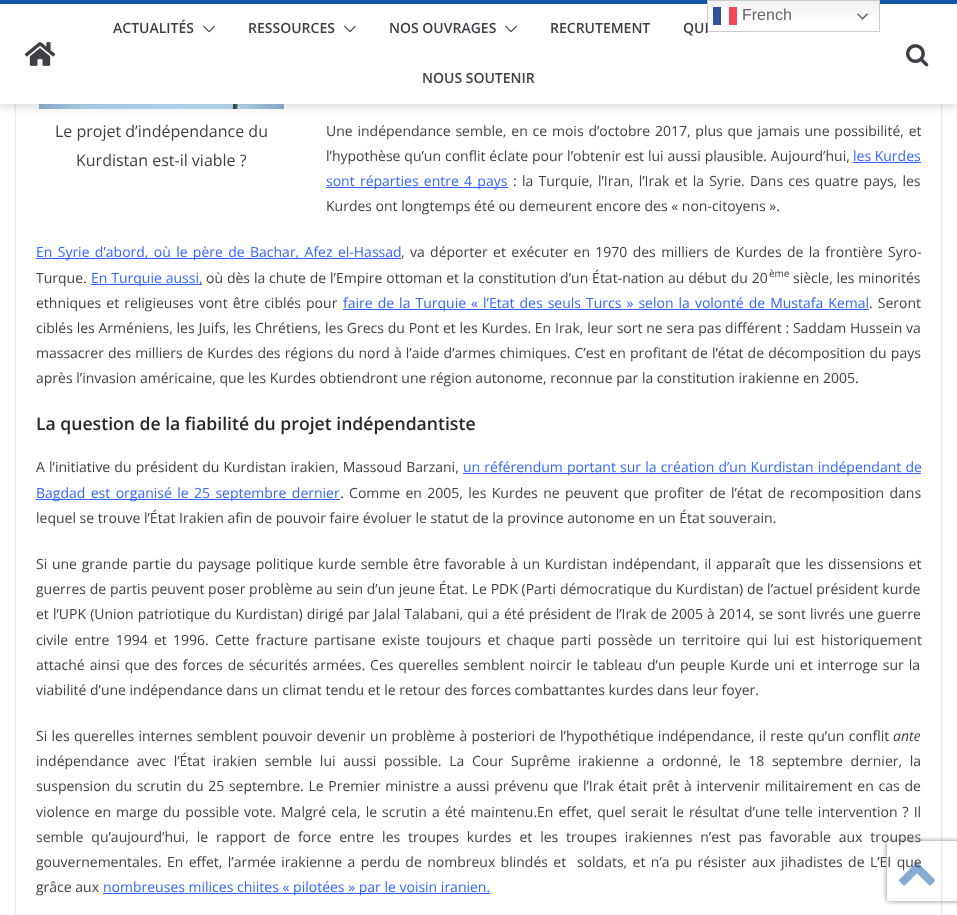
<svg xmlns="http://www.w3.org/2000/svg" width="957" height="915">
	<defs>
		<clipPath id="clip1"><path d="M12 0H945V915H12ZM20-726H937C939-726 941-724 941-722V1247C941 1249 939 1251 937 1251H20C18 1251 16 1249 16 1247V-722C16-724 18-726 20-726Z" clip-rule="evenodd" /></clipPath>
		<linearGradient id="g1" gradientUnits="userSpaceOnUse" x1="794" y1="0" x2="794" y2="32"><stop offset="0" stop-color="#EFEFEF" /><stop offset="0.7" stop-color="#FFFFFF" /></linearGradient>
		<clipPath id="clip2"><path d="M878 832H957V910H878ZM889 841H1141C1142 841 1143 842 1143 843V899C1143 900 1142 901 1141 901H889C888 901 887 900 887 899V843C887 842 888 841 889 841Z" clip-rule="evenodd" /></clipPath>
	</defs>
	<rect width="100%" height="100%" fill="#FFFFFF" />
	<g clip-path="url(#clip1)">
		<rect x="16" y="-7" width="925" height="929" rx="4" fill="#000000" fill-opacity="0.24" filter="blur(1px)" />
	</g>
	<image x="39" y="104" width="245" height="5" href="assets/img6.png" />
	<rect x="0" y="5" width="957" height="104" fill="#000000" fill-opacity="0.1" filter="blur(3px)" />
	<rect x="0" y="4" width="957" height="100" fill="#FFFFFF" />
	<rect x="0" y="0" width="957" height="4" fill="#0E55A5" />
	<rect x="708" y="1" width="171" height="18" fill="url(#g1)" />
	<rect x="707.5" y="0.5" width="172" height="31" fill="none" stroke="#CCCCCC" />
	<rect x="713" y="7" width="8" height="18" fill="#335198" />
	<rect x="721" y="7" width="8" height="18" fill="#FFFFFF" fill-opacity="0.8" />
	<rect x="729" y="7" width="8" height="18" fill="#F54659" />
	<text x="742" y="20" font-family="Liberation Sans" font-size="16" fill="#666666">French</text>
	<image x="857" y="13" width="11" height="7" href="assets/img1.png" />
	<image x="24" y="42" width="32" height="24" href="assets/img2.png" />
	<text x="113" y="33" font-family="Open Sans" font-size="14" font-weight="600" fill="#3F3F46">ACTUALITÉS</text>
	<image x="203" y="25" width="12" height="8" href="assets/img3.png" />
	<text x="248" y="33" font-family="Open Sans" font-size="14" font-weight="600" fill="#3F3F46">RESSOURCES</text>
	<image x="344" y="25" width="12" height="8" href="assets/img3.png" />
	<text x="389" y="33" font-family="Open Sans" font-size="14" font-weight="600" fill="#3F3F46">NOS OUVRAGES</text>
	<image x="505" y="25" width="12" height="8" href="assets/img3.png" />
	<g font-family="Open Sans" font-size="14" font-weight="600" fill="#3F3F46">
		<text x="550" y="33">RECRUTEMENT</text>
		<text x="683" y="33">QUI</text>
	</g>
	<image x="836" y="32" width="2" height="1" href="assets/img4.png" />
	<text x="422" y="83" font-family="Open Sans" font-size="14" font-weight="600" fill="#3F3F46">NOUS SOUTENIR</text>
	<image x="906" y="44" width="23" height="23" href="assets/img5.png" />
	<g font-family="Open Sans" font-size="16" fill="#3F3F46">
		<text x="55" y="137">Le projet d’indépendance du</text>
		<text x="76" y="166">Kurdistan est-il viable ?</text>
	</g>
	<g font-family="Open Sans" font-size="14" fill="#3F3F46">
		<text x="326" y="136" word-spacing="1.2">Une indépendance semble, en ce mois d’octobre 2017, plus que jamais une possibilité, et</text>
		<text x="326" y="161" word-spacing="0.25">l’hypothèse qu’un conflit éclate pour l’obtenir est lui aussi plausible. Aujourd’hui,</text>
	</g>
	<text x="853" y="161" font-family="Open Sans" font-size="14" fill="#3366FF">les Kurdes</text>
	<rect x="853" y="162" width="68" height="1" fill="#3366FF" />
	<rect x="326" y="187" width="182" height="1" fill="#3366FF" />
	<text x="326" y="186" word-spacing="1.6" font-family="Open Sans" font-size="14" fill="#3366FF">sont réparties entre 4 pays</text>
	<g font-family="Open Sans" font-size="14" fill="#3F3F46">
		<text x="513" y="186" word-spacing="1.6">: la Turquie, l’Iran, l’Irak et la Syrie. Dans ces quatre pays, les</text>
		<text x="326" y="211">Kurdes ont longtemps été ou demeurent encore des « non-citoyens ».</text>
	</g>
	<rect x="36" y="258" width="365" height="1" fill="#3366FF" />
	<text x="36" y="257" word-spacing="1.7" font-family="Open Sans" font-size="14" fill="#3366FF">En Syrie d’abord, où le père de Bachar, Afez el-Hassad</text>
	<g font-family="Open Sans" font-size="14" fill="#3F3F46">
		<text x="401" y="257" word-spacing="1.7">, va déporter et exécuter en 1970 des milliers de Kurdes de la frontière Syro-</text>
		<text x="36" y="283">Turque.</text>
	</g>
	<rect x="91" y="284" width="111" height="1" fill="#3366FF" />
	<text x="91" y="283" word-spacing="0.25" font-family="Open Sans" font-size="14" fill="#3366FF">En Turquie aussi,</text>
	<text x="206" y="283" word-spacing="0.25" font-family="Open Sans" font-size="14" fill="#3F3F46">où dès la chute de l’Empire ottoman et la constitution d’un État-nation au début du 20</text>
	<text x="769" y="277" font-family="Open Sans" font-size="10" fill="#3F3F46">ème</text>
	<g font-family="Open Sans" font-size="14" fill="#3F3F46">
		<text x="793" y="283">siècle, les minorités</text>
		<text x="36" y="308" word-spacing="1.4">ethniques et religieuses vont être ciblés pour</text>
	</g>
	<rect x="343" y="309" width="526" height="1" fill="#3366FF" />
	<text x="343" y="308" word-spacing="1.4" font-family="Open Sans" font-size="14" fill="#3366FF">faire de la Turquie « l’Etat des seuls Turcs » selon la volonté de Mustafa Kemal</text>
	<g font-family="Open Sans" font-size="14" fill="#3F3F46">
		<text x="869" y="308" word-spacing="1.4">. Seront</text>
		<text x="36" y="333" word-spacing="0.15">ciblés les Arméniens, les Juifs, les Chrétiens, les Grecs du Pont et les Kurdes. En Irak, leur sort ne sera pas différent : Saddam Hussein va</text>
		<text x="36" y="358" word-spacing="0.5">massacrer des milliers de Kurdes des régions du nord à l’aide d’armes chimiques. C’est en profitant de l’état de décomposition du pays</text>
		<text x="36" y="383">après l’invasion américaine, que les Kurdes obtiendront une région autonome, reconnue par la constitution irakienne en 2005.</text>
	</g>
	<text x="36" y="430" font-family="Open Sans" font-size="17.6" font-weight="600" fill="#27272A">La question de la fiabilité du projet indépendantiste</text>
	<text x="36" y="472" word-spacing="0.5" font-family="Open Sans" font-size="14" fill="#3F3F46">A l’initiative du président du Kurdistan irakien, Massoud Barzani,</text>
	<rect x="463" y="473" width="458" height="1" fill="#3366FF" />
	<text x="463" y="472" word-spacing="0.5" font-family="Open Sans" font-size="14" fill="#3366FF">un référendum portant sur la création d’un Kurdistan indépendant de</text>
	<rect x="36" y="499" width="304" height="1" fill="#3366FF" />
	<text x="36" y="498" word-spacing="1.75" font-family="Open Sans" font-size="14" fill="#3366FF">Bagdad est organisé le 25 septembre dernier</text>
	<g font-family="Open Sans" font-size="14" fill="#3F3F46">
		<text x="340" y="498" word-spacing="1.75">. Comme en 2005, les Kurdes ne peuvent que profiter de l’état de recomposition dans</text>
		<text x="36" y="523">lequel se trouve l’État Irakien afin de pouvoir faire évoluer le statut de la province autonome en un État souverain.</text>
		<text x="36" y="569" word-spacing="1.1">Si une grande partie du paysage politique kurde semble être favorable à un Kurdistan indépendant, il apparaît que les dissensions et</text>
		<text x="36" y="594" word-spacing="0.1">guerres de partis peuvent poser problème au sein d’un jeune État. Le PDK (Parti démocratique du Kurdistan) de l’actuel président kurde</text>
		<text x="36" y="619" word-spacing="0.45">et l’UPK (Union patriotique du Kurdistan) dirigé par Jalal Talabani, qui a été président de l’Irak de 2005 à 2014, se sont livrés une guerre</text>
		<text x="36" y="645" word-spacing="2.6">civile entre 1994 et 1996. Cette fracture partisane existe toujours et chaque parti possède un territoire qui lui est historiquement</text>
		<text x="36" y="670" word-spacing="1.3">attaché ainsi que des forces de sécurités armées. Ces querelles semblent noircir le tableau d’un peuple Kurde uni et interroge sur la</text>
		<text x="36" y="695">viabilité d’une indépendance dans un climat tendu et le retour des forces combattantes kurdes dans leur foyer.</text>
		<text x="36" y="741" word-spacing="0.7">Si les querelles internes semblent pouvoir devenir un problème à posteriori de l’hypothétique indépendance, il reste qu’un conflit</text>
	</g>
	<text x="893" y="741" font-family="Open Sans" font-size="14" font-style="italic" fill="#3F3F46">ante</text>
	<g font-family="Open Sans" font-size="14" fill="#3F3F46">
		<text x="36" y="766" word-spacing="4">indépendance avec l’État irakien semble lui aussi possible. La Cour Suprême irakienne a ordonné, le 18 septembre dernier, la</text>
		<text x="36" y="791" word-spacing="1.1">suspension du scrutin du 25 septembre. Le Premier ministre a aussi prévenu que l’Irak était prêt à intervenir militairement en cas de</text>
		<text x="36" y="817" word-spacing="1.4">violence en marge du possible vote. Malgré cela, le scrutin a été maintenu.En effet, quel serait le résultat d’une telle intervention ? Il</text>
		<text x="36" y="842" word-spacing="4.25">semble qu’aujourd’hui, le rapport de force entre les troupes kurdes et les troupes irakiennes n’est pas favorable aux troupes</text>
		<text x="36" y="867" word-spacing="1.75" xml:space="preserve">gouvernementales. En effet, l’armée irakienne a perdu de nombreux blindés et  soldats, et n’a pu résister aux jihadistes de L’EI que</text>
		<text x="36" y="892">grâce aux</text>
	</g>
	<rect x="103" y="893" width="387" height="1" fill="#3366FF" />
	<text x="103" y="892" font-family="Open Sans" font-size="14" fill="#3366FF">nombreuses milices chiites « pilotées » par le voisin iranien.</text>
	<g clip-path="url(#clip2)">
		<rect x="887" y="841" width="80" height="60" rx="2" fill="#808080" filter="blur(2.5px)" />
	</g>
	<image x="899" y="862" width="36" height="24" href="assets/img7.png" />
</svg>
